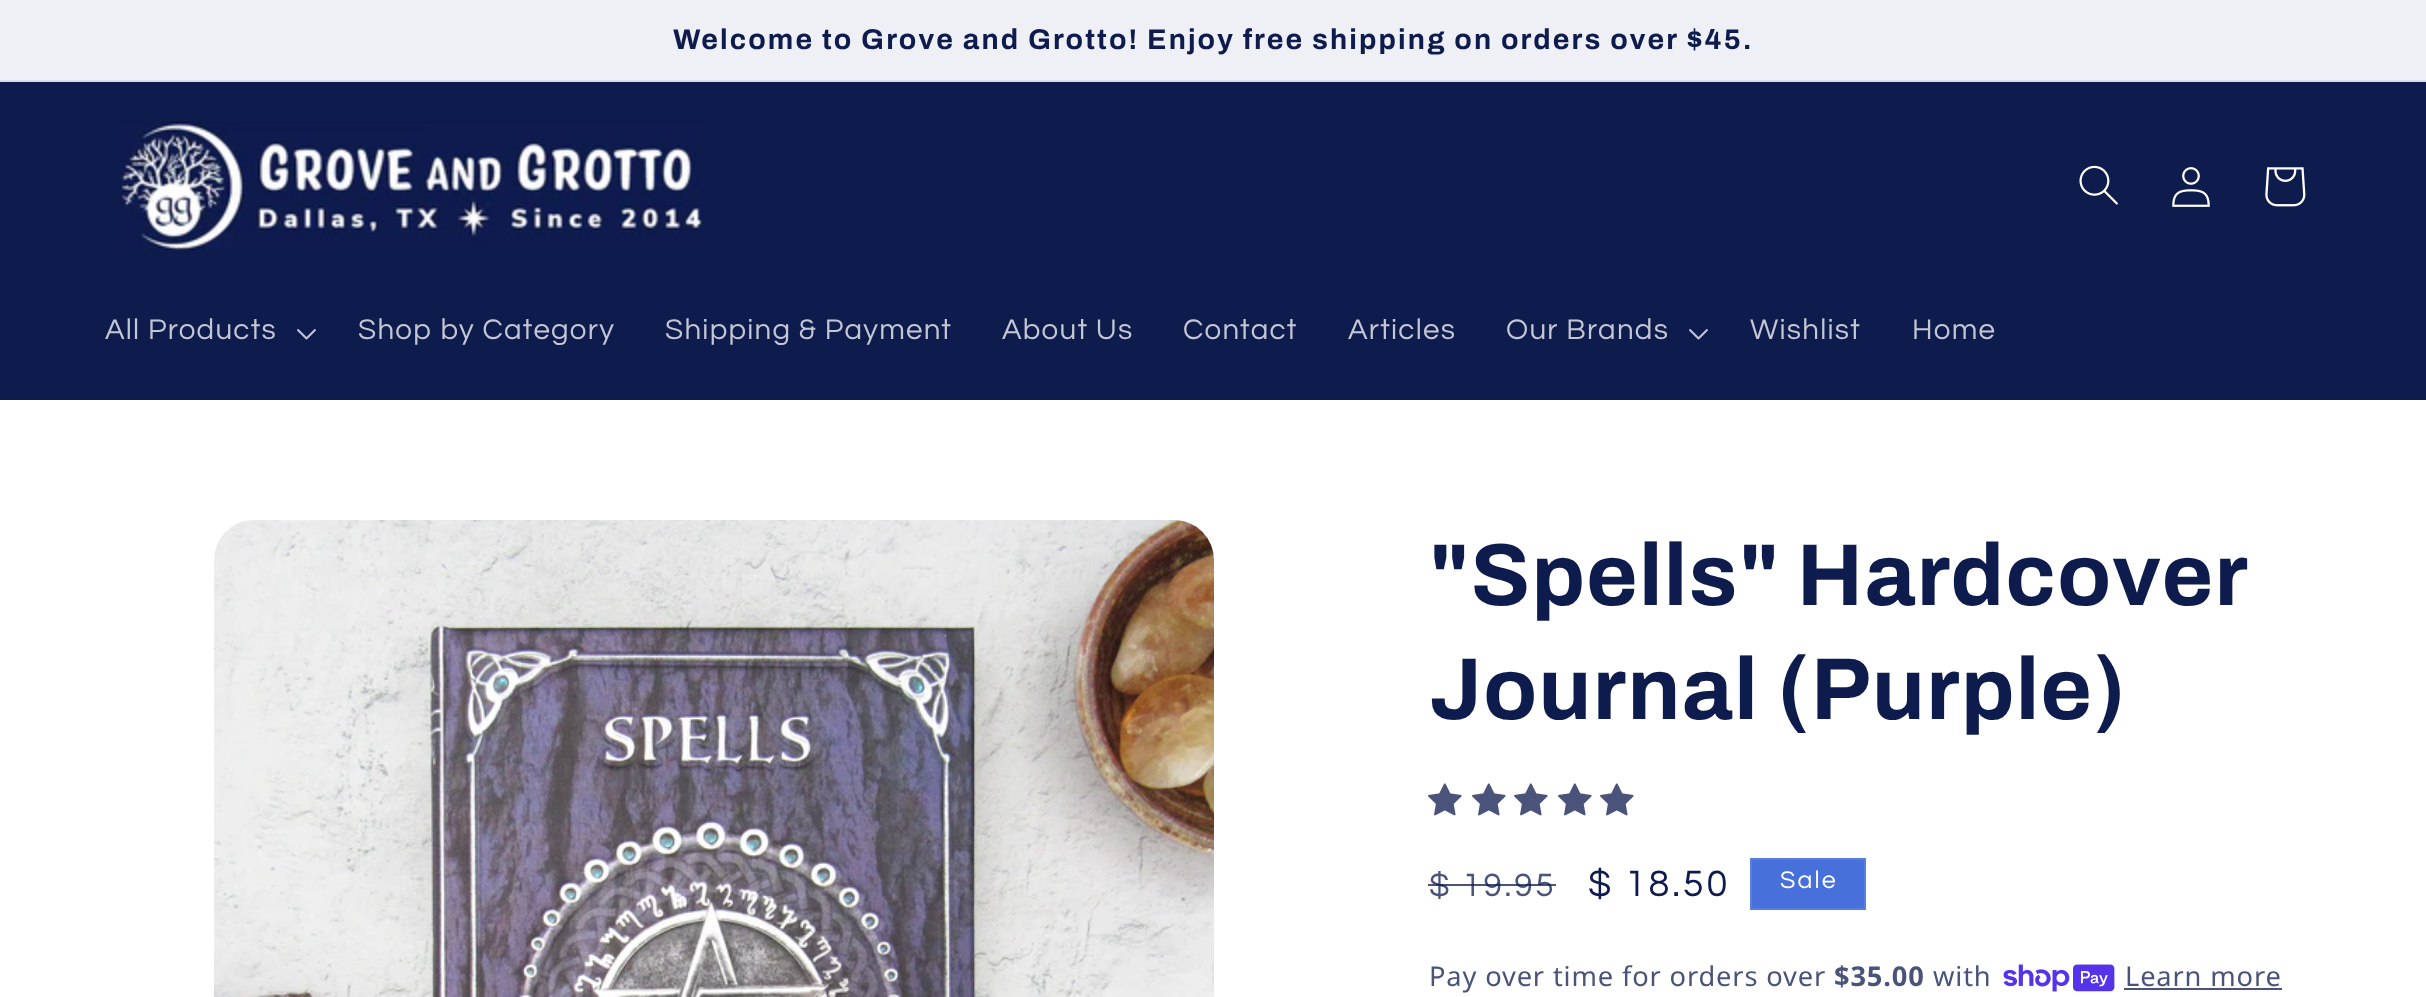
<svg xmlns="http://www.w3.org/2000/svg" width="2426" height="997">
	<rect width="100%" height="100%" fill="#EFF0F5" />
	<rect x="0" y="80" width="2426" height="2" fill="#DDDFE8" />
	<text x="673" y="49" font-family="Archivo" font-size="28.6" font-weight="700" letter-spacing="2.1" fill="#0E1B4D">Welcome to Grove and Grotto! Enjoy free shipping on orders over $45.</text>
	<rect x="0" y="82" width="2426" height="318" fill="#0E1B4D" />
	<image x="120" y="121" width="586" height="129" href="assets/img1.png" />
	<image x="2079" y="165" width="39" height="40" href="assets/img2.png" />
	<image x="2172" y="167" width="38" height="40" href="assets/img3.png" />
	<image x="2265" y="167" width="41" height="40" href="assets/img4.png" />
	<text x="105" y="339" font-family="Questrial" font-size="29.5" letter-spacing="1.25" fill="#C3C6D3">All Products</text>
	<image x="297" y="329" width="19" height="11" href="assets/img5.png" />
	<g font-family="Questrial" font-size="29.5" letter-spacing="1.25" fill="#C3C6D3">
		<text x="358" y="339">Shop by Category</text>
		<text x="665" y="339">Shipping &amp; Payment</text>
		<text x="1002" y="339">About Us</text>
		<text x="1183" y="339">Contact</text>
		<text x="1348" y="339">Articles</text>
		<text x="1506" y="339">Our Brands</text>
	</g>
	<image x="1689" y="329" width="19" height="11" href="assets/img5.png" />
	<g font-family="Questrial" font-size="29.5" letter-spacing="1.25" fill="#C3C6D3">
		<text x="1750" y="339">Wishlist</text>
		<text x="1912" y="339">Home</text>
	</g>
	<rect x="0" y="400" width="2426" height="597" fill="#FFFFFF" />
	<image x="214" y="520" width="1000" height="477" href="assets/img6.png" />
	<g font-family="Archivo" font-size="88" font-weight="700" letter-spacing="1.3" fill="#0E1B4D">
		<text x="1429" y="605" word-spacing="-2">"Spells" Hardcover</text>
		<text x="1429" y="719">Journal (Purple)</text>
	</g>
	<image x="1428" y="783" width="34" height="33" href="assets/img7.png" />
	<image x="1472" y="783" width="34" height="33" href="assets/img7.png" />
	<image x="1514" y="783" width="34" height="33" href="assets/img7.png" />
	<image x="1558" y="783" width="34" height="33" href="assets/img7.png" />
	<image x="1600" y="783" width="34" height="33" href="assets/img7.png" />
	<text x="1429" y="896" font-family="Questrial" font-size="33.5" letter-spacing="2.75" fill="#4A547A">$ 19.95</text>
	<rect x="1428" y="884" width="128" height="2" fill="#0E1B4D" fill-opacity="0.75" />
	<text x="1588" y="896" font-family="Questrial" font-size="38" letter-spacing="2.75" fill="#0E1B4D">$ 18.50</text>
	<rect x="1751" y="859" width="114" height="50" fill="#4770DB" stroke="#597EDF" stroke-width="2" />
	<text x="1780" y="888" font-family="Questrial" font-size="25" letter-spacing="2.1" fill="#FFFFFF">Sale</text>
	<text x="1429" y="986" font-family="Noto Sans" font-size="27.25" letter-spacing="0.85" fill="#4A547A">Pay over time for orders over</text>
	<text x="1834" y="986" font-family="Noto Sans" font-size="27.25" font-weight="700" letter-spacing="0.85" fill="#4A547A">$35.00</text>
	<text x="1933" y="986" font-family="Noto Sans" font-size="27.25" letter-spacing="0.85" fill="#4A547A">with</text>
	<image x="2003" y="964" width="112" height="28" href="assets/img8.png" />
	<text x="2125" y="986" font-family="Noto Sans" font-size="27.25" letter-spacing="0.85" fill="#4A547A">Learn more</text>
	<rect x="2124" y="988" width="158" height="2" fill="#4A547A" />
</svg>
